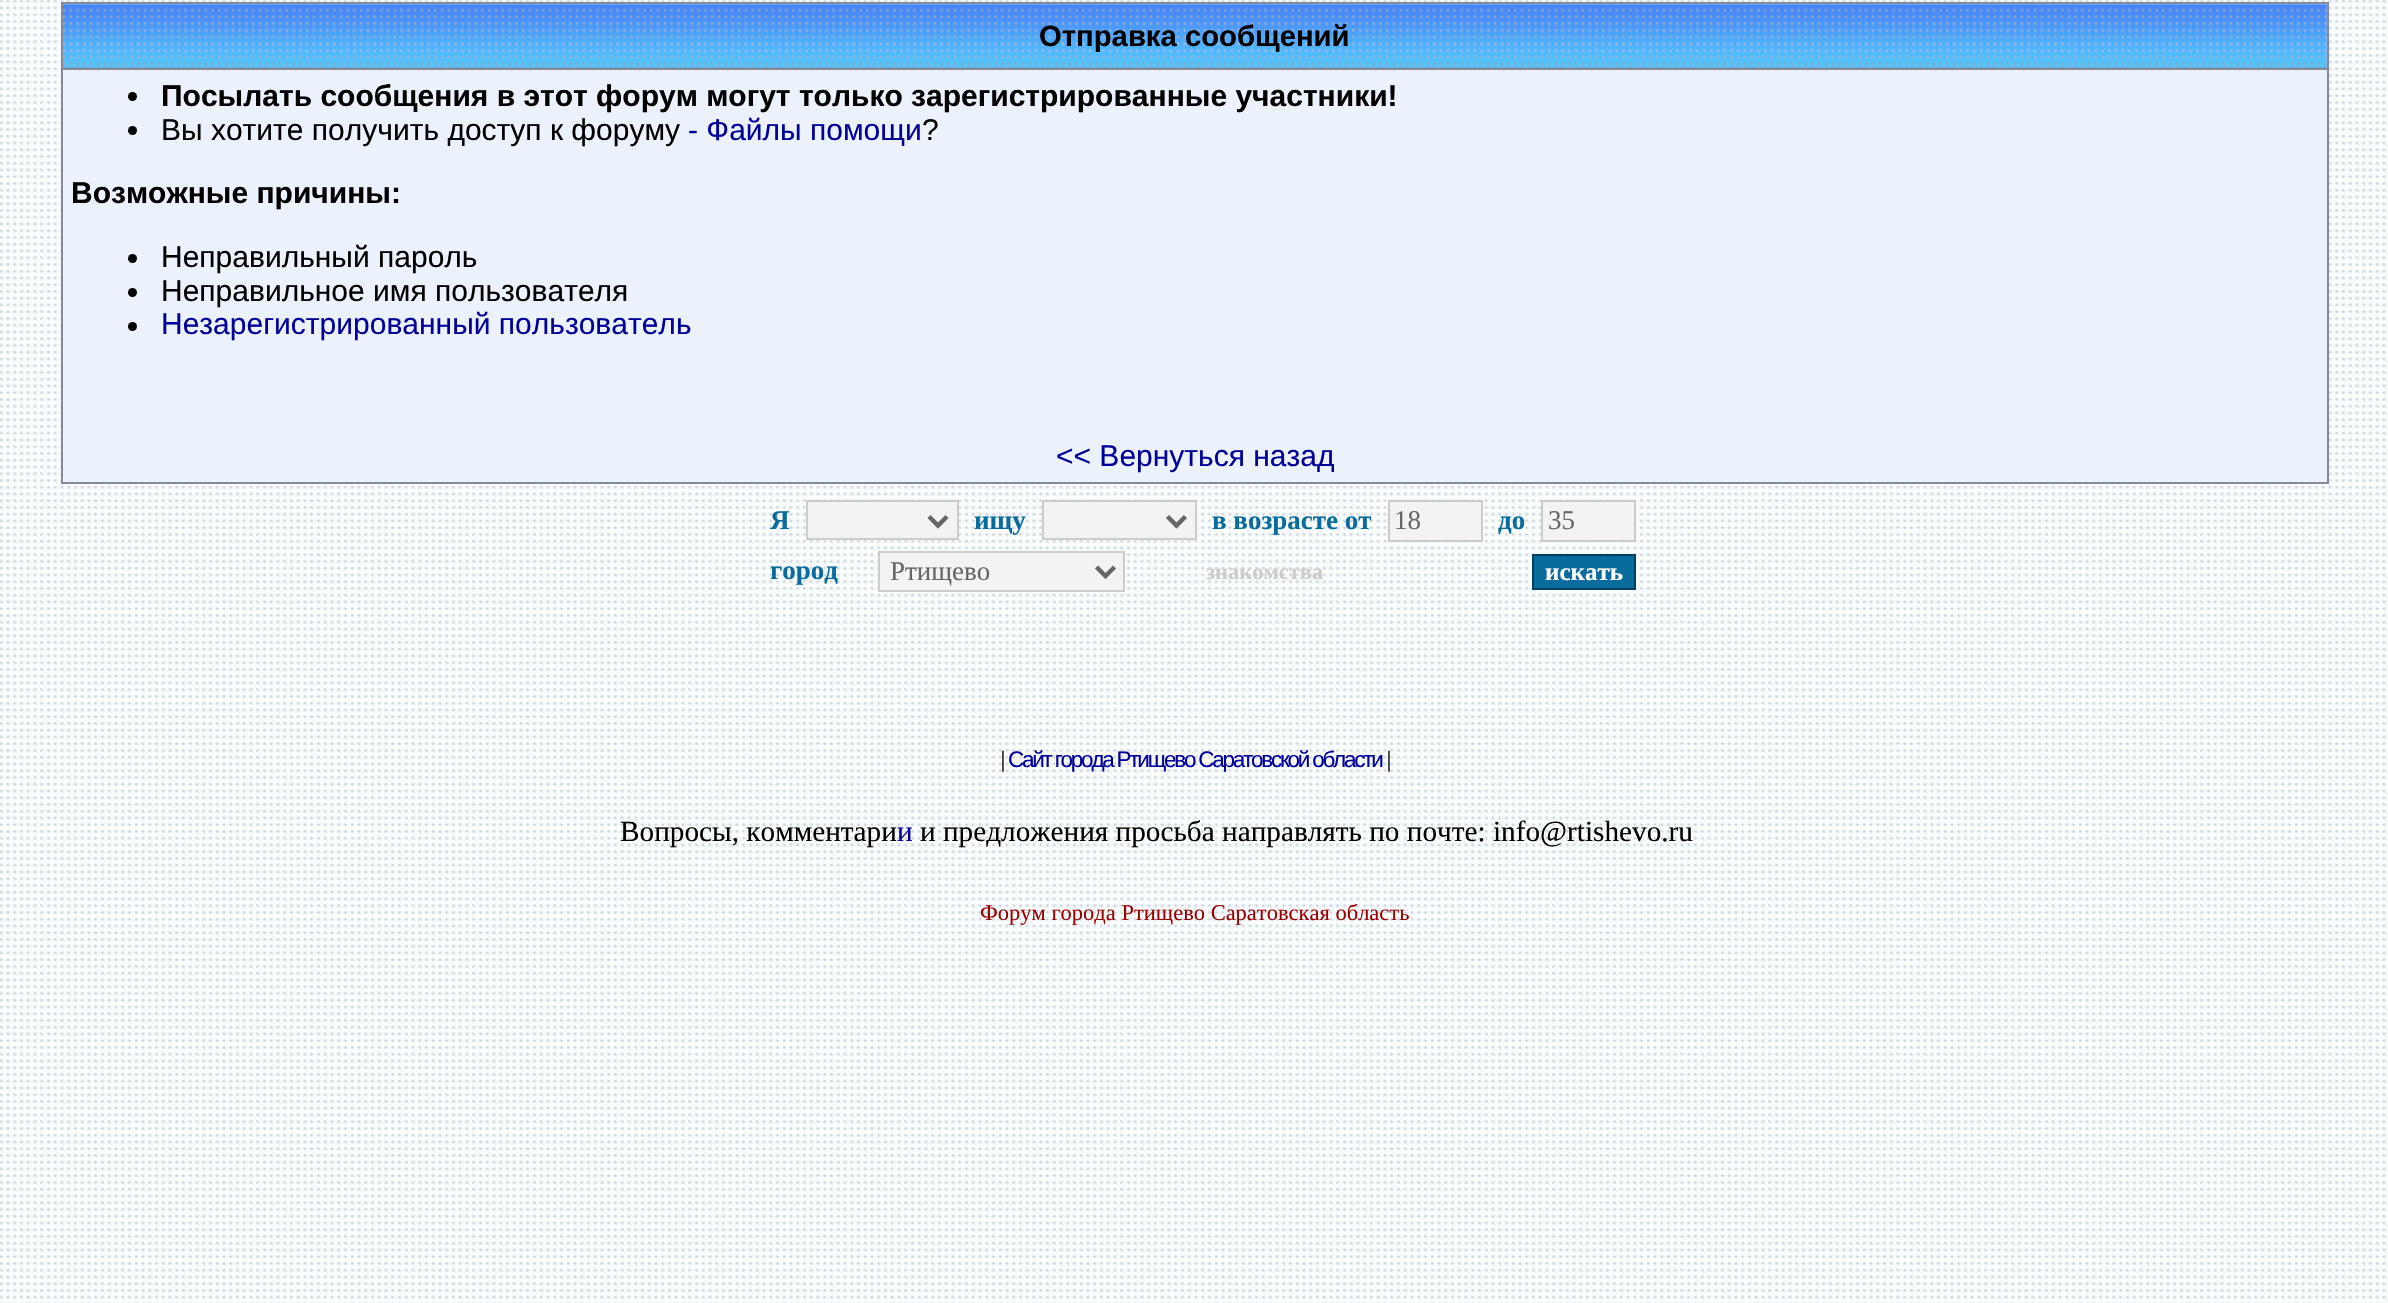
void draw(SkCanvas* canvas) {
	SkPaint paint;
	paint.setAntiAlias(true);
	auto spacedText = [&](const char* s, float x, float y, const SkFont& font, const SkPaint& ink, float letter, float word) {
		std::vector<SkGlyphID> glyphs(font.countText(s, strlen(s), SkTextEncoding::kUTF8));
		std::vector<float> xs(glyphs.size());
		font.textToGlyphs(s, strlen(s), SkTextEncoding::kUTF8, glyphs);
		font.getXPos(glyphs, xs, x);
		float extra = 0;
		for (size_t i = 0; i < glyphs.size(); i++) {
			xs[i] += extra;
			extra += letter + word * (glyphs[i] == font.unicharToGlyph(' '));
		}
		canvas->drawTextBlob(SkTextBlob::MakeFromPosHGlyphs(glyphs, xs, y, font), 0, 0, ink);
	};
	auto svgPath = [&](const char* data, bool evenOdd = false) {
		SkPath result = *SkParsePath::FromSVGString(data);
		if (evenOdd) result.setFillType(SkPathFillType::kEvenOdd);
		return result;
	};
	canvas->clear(0xffffffff);
	canvas->drawImageRect(SkImages::DeferredFromEncodedData(SkData::MakeFromFileName("img1.png")), SkRect::MakeXYWH(0, 0, 2388, 1303), SkSamplingOptions());
	paint.setColor(0xffecf2fc);
	canvas->drawRect(SkRect::MakeXYWH(62, 3, 2266, 480), paint);
	paint.setStroke(true);
	paint.setStrokeWidth(2);
	paint.setColor(0xff848a9c);
	canvas->drawRect(SkRect::MakeXYWH(62, 3, 2266, 480), paint);
	canvas->drawImageRect(SkImages::DeferredFromEncodedData(SkData::MakeFromFileName("img2.png")), SkRect::MakeXYWH(63, 4, 2264, 64), SkSamplingOptions());
	paint.setStroke(false);
	canvas->drawRect(SkRect::MakeXYWH(63, 68, 2264, 2), paint);
	SkFont f1(fontMgr->matchFamilyStyle("Liberation Sans", SkFontStyle::Bold()), 29.25);
	f1.setSubpixel(true);
	paint.setColor(0xff000000);
	canvas->drawString("Отправка сообщений", 1039, 46, f1, paint);
	canvas->drawCircle(132.5, 96.5, 4.5, paint);
	SkFont f2(fontMgr->matchFamilyStyle("Liberation Sans", SkFontStyle::Bold()), 30);
	f2.setSubpixel(true);
	canvas->drawString("Посылать сообщения в этот форум могут только зарегистрированные участники!", 161, 106, f2, paint);
	canvas->drawCircle(132.5, 130.5, 4.5, paint);
	SkFont f3(fontMgr->matchFamilyStyle("Liberation Sans", SkFontStyle::Normal()), 30);
	f3.setSubpixel(true);
	canvas->drawString("Вы хотите получить доступ к форуму", 161, 140, f3, paint);
	paint.setColor(0xff000099);
	canvas->drawString("- Файлы помощи", 688, 140, f3, paint);
	paint.setColor(0xff000000);
	canvas->drawString("?", 922, 140, f3, paint);
	canvas->drawString("Возможные причины:", 71, 203, f2, paint);
	canvas->drawCircle(132.5, 258.5, 4.5, paint);
	canvas->drawString("Неправильный пароль", 161, 267, f3, paint);
	canvas->drawCircle(132.5, 292.5, 4.5, paint);
	canvas->drawString("Неправильное имя пользователя", 161, 301, f3, paint);
	canvas->drawCircle(132.5, 326.5, 4.5, paint);
	paint.setColor(0xff000099);
	canvas->drawString("Незарегистрированный пользователь", 161, 334, f3, paint);
	canvas->drawString("<< Вернуться назад", 1056, 466, f3, paint);
	SkFont f4(fontMgr->matchFamilyStyle("Liberation Serif", SkFontStyle::Bold()), 27);
	f4.setSubpixel(true);
	paint.setColor(0xff0a6b9d);
	canvas->drawString("Я", 770, 529, f4, paint);
	paint.setColor(0xfff3f3f4);
	canvas->drawRect(SkRect::MakeXYWH(807, 501, 151, 38), paint);
	paint.setStroke(true);
	paint.setColor(0xffcccccc);
	canvas->drawRect(SkRect::MakeXYWH(807, 501, 151, 38), paint);
	paint.setStrokeWidth(4.5);
	paint.setColor(0xff666666);
	canvas->drawPath(svgPath("M929 516.5L938 525.5L947 516.5"), paint);
	paint.setStroke(false);
	paint.setColor(0xff0a6b9d);
	canvas->drawString("ищу", 974, 529, f4, paint);
	paint.setColor(0xfff3f3f4);
	canvas->drawRect(SkRect::MakeXYWH(1043, 501, 153, 38), paint);
	paint.setStroke(true);
	paint.setStrokeWidth(2);
	paint.setColor(0xffcccccc);
	canvas->drawRect(SkRect::MakeXYWH(1043, 501, 153, 38), paint);
	paint.setStrokeWidth(4.5);
	paint.setColor(0xff666666);
	canvas->drawPath(svgPath("M1167.5 516.5L1176.5 525.5L1185.5 516.5"), paint);
	paint.setStroke(false);
	paint.setColor(0xff0a6b9d);
	canvas->drawString("в возрасте от", 1212, 529, f4, paint);
	paint.setColor(0xfff3f3f4);
	canvas->drawRect(SkRect::MakeXYWH(1389, 501, 93, 40), paint);
	paint.setStroke(true);
	paint.setStrokeWidth(2);
	paint.setColor(0xffcccccc);
	canvas->drawRect(SkRect::MakeXYWH(1389, 501, 93, 40), paint);
	SkFont f5(fontMgr->matchFamilyStyle("Liberation Serif", SkFontStyle::Normal()), 27);
	f5.setSubpixel(true);
	paint.setStroke(false);
	paint.setColor(0xff666666);
	canvas->drawString("18", 1394, 529, f5, paint);
	paint.setColor(0xff0a6b9d);
	canvas->drawString("до", 1498, 529, f4, paint);
	paint.setColor(0xfff3f3f4);
	canvas->drawRect(SkRect::MakeXYWH(1542, 501, 93, 40), paint);
	paint.setStroke(true);
	paint.setColor(0xffcccccc);
	canvas->drawRect(SkRect::MakeXYWH(1542, 501, 93, 40), paint);
	paint.setStroke(false);
	paint.setColor(0xff666666);
	canvas->drawString("35", 1548, 529, f5, paint);
	paint.setColor(0xff0a6b9d);
	canvas->drawString("город", 770, 579, f4, paint);
	paint.setColor(0xfff3f3f4);
	canvas->drawRect(SkRect::MakeXYWH(879, 552, 245, 39), paint);
	paint.setStroke(true);
	paint.setColor(0xffcccccc);
	canvas->drawRect(SkRect::MakeXYWH(879, 552, 245, 39), paint);
	paint.setStrokeWidth(4.5);
	paint.setColor(0xff666666);
	canvas->drawPath(svgPath("M1096.5 567L1105.5 576L1114.5 567"), paint);
	paint.setStroke(false);
	canvas->drawString("Ртищево", 890, 580, f5, paint);
	SkFont f6(fontMgr->matchFamilyStyle("Liberation Serif", SkFontStyle::Bold()), 22.5);
	f6.setSubpixel(true);
	paint.setColor(0xffcccccc);
	canvas->drawString("знакомства", 1206, 579, f6, paint);
	paint.setColor(0xff0a6b9d);
	canvas->drawRect(SkRect::MakeXYWH(1533, 555, 102, 34), paint);
	paint.setStroke(true);
	paint.setStrokeWidth(2);
	paint.setColor(0xff063f5e);
	canvas->drawRect(SkRect::MakeXYWH(1533, 555, 102, 34), paint);
	SkFont f7(fontMgr->matchFamilyStyle("Liberation Serif", SkFontStyle::Bold()), 25);
	f7.setSubpixel(true);
	paint.setStroke(false);
	paint.setColor(0xffffffff);
	canvas->drawString("искать", 1545, 580, f7, paint);
	SkFont f8(fontMgr->matchFamilyStyle("Liberation Sans", SkFontStyle::Normal()), 22.5);
	f8.setSubpixel(true);
	paint.setColor(0xff444444);
	spacedText("|", 1000, 767, f8, paint, -2.25, 0);
	paint.setColor(0xff000099);
	spacedText("Сайт города Ртищево Саратовской области", 1008, 767, f8, paint, -2.25, 0);
	paint.setColor(0xff444444);
	spacedText("|", 1386, 767, f8, paint, -2.25, 0);
	SkFont f9(fontMgr->matchFamilyStyle("Liberation Serif", SkFontStyle::Normal()), 29.25);
	f9.setSubpixel(true);
	paint.setColor(0xff000000);
	canvas->drawString("Вопросы, комментари", 620, 841, f9, paint);
	paint.setColor(0xff000099);
	canvas->drawString("и", 897, 841, f9, paint);
	paint.setColor(0xff000000);
	canvas->drawString("и предложения просьба направлять по почте: info@rtishevo.ru", 920, 841, f9, paint);
	SkFont f10(fontMgr->matchFamilyStyle("Liberation Serif", SkFontStyle::Normal()), 22.5);
	f10.setSubpixel(true);
	paint.setColor(0xff990000);
	canvas->drawString("Форум города Ртищево Саратовская область", 980, 920, f10, paint);
}
